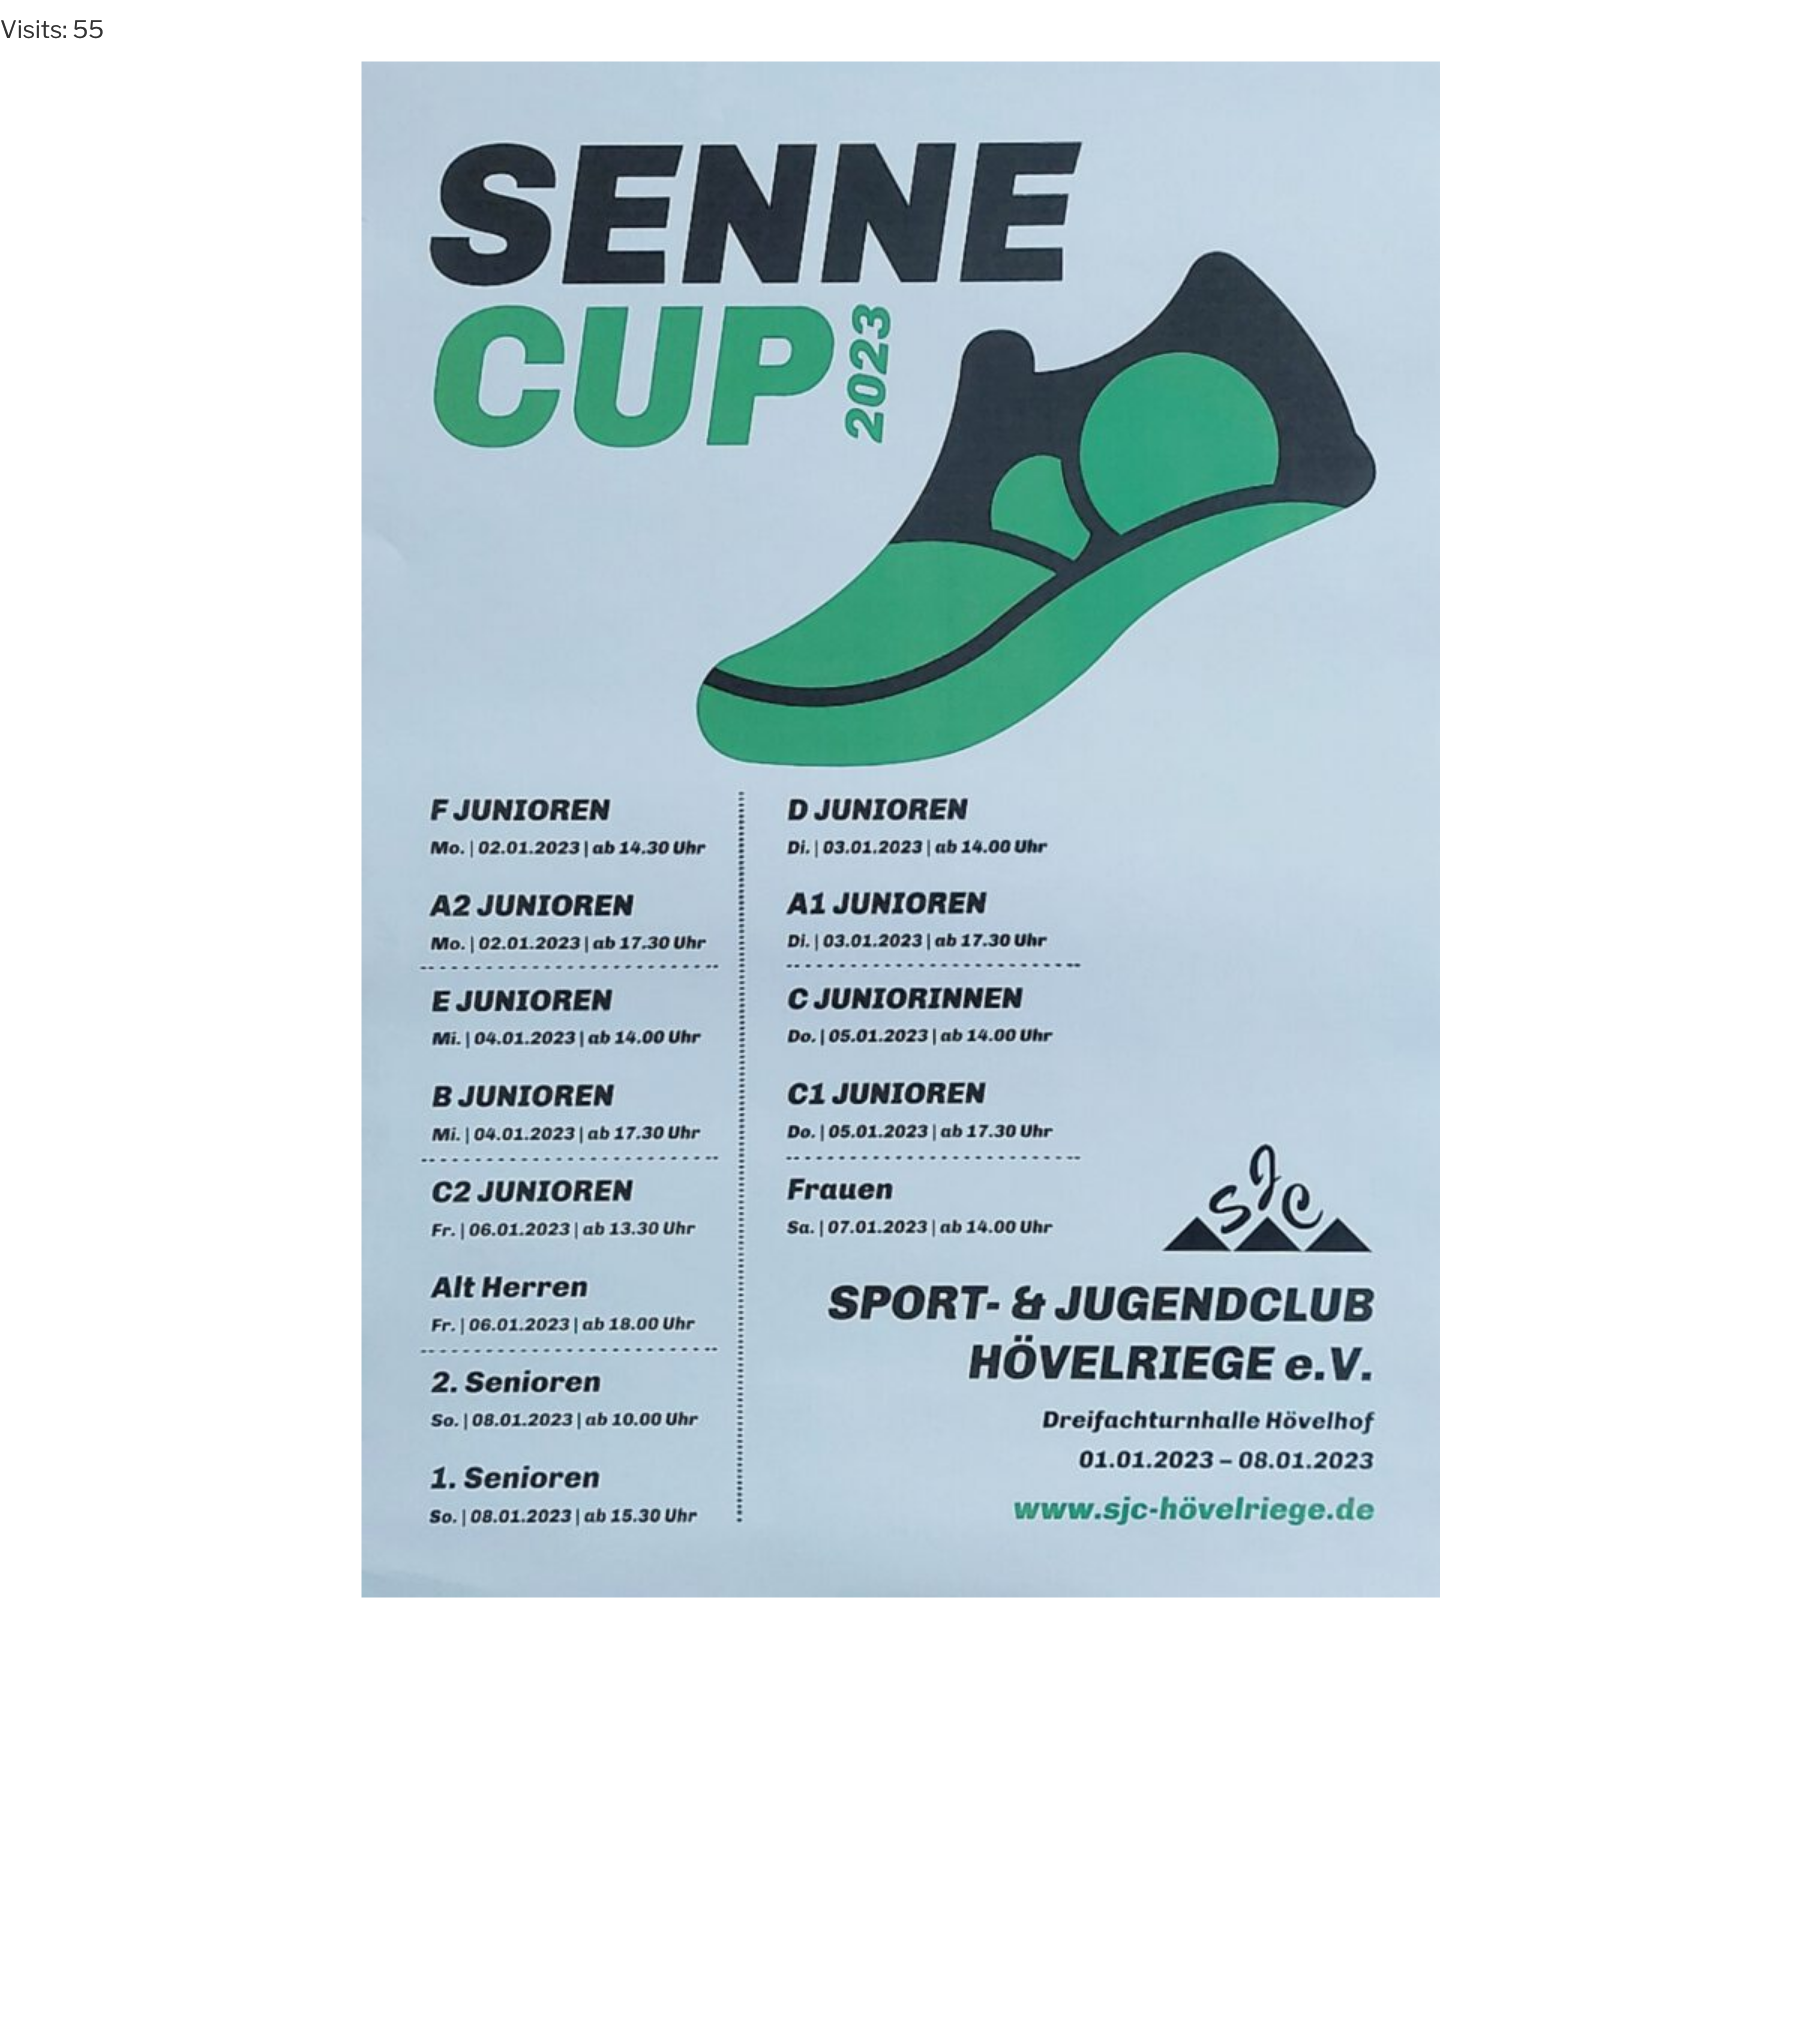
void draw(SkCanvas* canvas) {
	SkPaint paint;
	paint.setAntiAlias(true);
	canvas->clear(0xffffffff);
	SkFont f1(fontMgr->matchFamilyStyle("Libre Franklin", SkFontStyle::Normal()), 24);
	f1.setSubpixel(true);
	paint.setColor(0xff333333);
	canvas->drawString("Visits: 55", 0, 38, f1, paint);
	canvas->drawImageRect(SkImages::DeferredFromEncodedData(SkData::MakeFromFileName("img1.png")), SkRect::MakeXYWH(361, 61, 1079, 1537), SkSamplingOptions());
}
